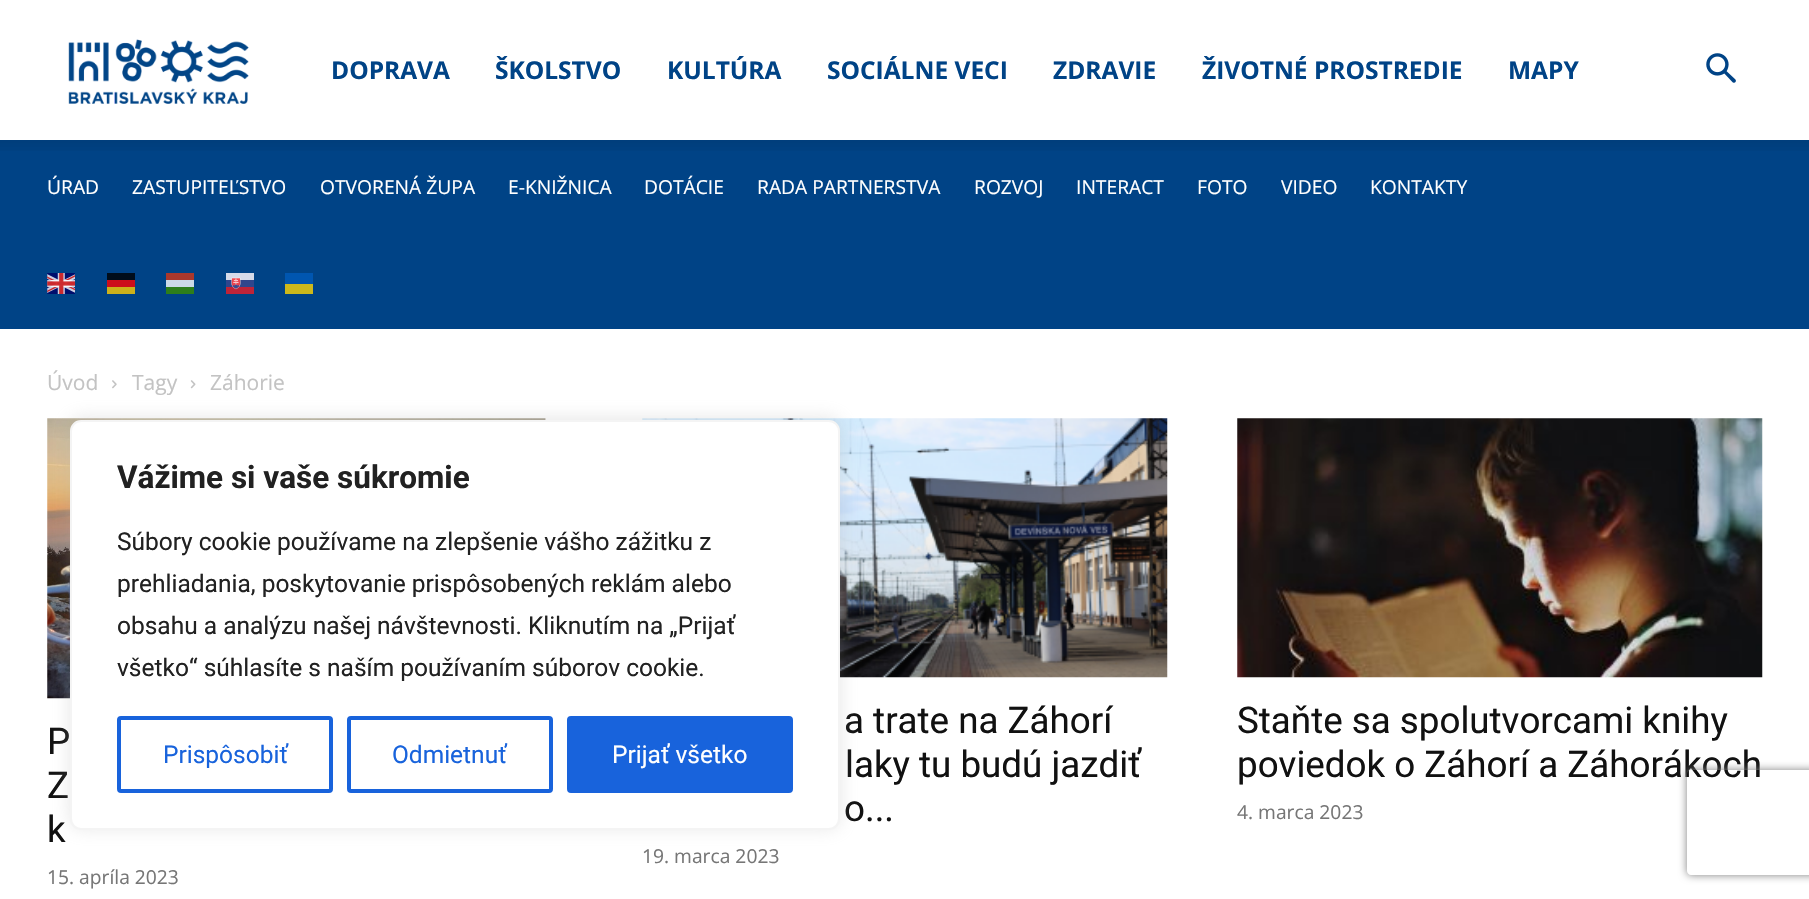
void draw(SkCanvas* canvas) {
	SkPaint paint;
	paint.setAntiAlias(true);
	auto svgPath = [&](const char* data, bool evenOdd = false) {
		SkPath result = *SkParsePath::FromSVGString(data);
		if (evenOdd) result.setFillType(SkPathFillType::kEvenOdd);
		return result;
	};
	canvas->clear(0xffffffff);
	canvas->drawImageRect(SkImages::DeferredFromEncodedData(SkData::MakeFromFileName("img1.png")), SkRect::MakeXYWH(68, 39, 181, 65), SkSamplingOptions());
	SkFont f1(fontMgr->matchFamilyStyle("Open Sans", SkFontStyle::Bold()), 24.5);
	f1.setSubpixel(true);
	paint.setColor(0xff004386);
	canvas->drawString("DOPRAVA", 331, 79, f1, paint);
	canvas->drawString("ŠKOLSTVO", 495, 79, f1, paint);
	canvas->drawString("KULTÚRA", 667, 79, f1, paint);
	canvas->drawString("SOCIÁLNE VECI", 827, 79, f1, paint);
	canvas->drawString("ZDRAVIE", 1053, 79, f1, paint);
	canvas->drawString("ŽIVOTNÉ PROSTREDIE", 1202, 79, f1, paint);
	canvas->drawString("MAPY", 1508, 79, f1, paint);
	canvas->drawImageRect(SkImages::DeferredFromEncodedData(SkData::MakeFromFileName("img2.png")), SkRect::MakeXYWH(1706, 53, 30, 30), SkSamplingOptions());
	canvas->drawRect(SkRect::MakeXYWH(0, 140, 1809, 189), paint);
	canvas->drawImageRect(SkImages::DeferredFromEncodedData(SkData::MakeFromFileName("img3.png")), SkRect::MakeXYWH(0, 140, 1809, 11), SkSamplingOptions());
	SkFont f2(fontMgr->matchFamilyStyle("Open Sans", SkFontStyle::Normal()), 19.25);
	f2.setSubpixel(true);
	paint.setColor(0xffffffff);
	canvas->drawString("ÚRAD", 47, 194, f2, paint);
	canvas->drawString("ZASTUPITEĽSTVO", 132, 194, f2, paint);
	canvas->drawString("OTVORENÁ ŽUPA", 320, 194, f2, paint);
	canvas->drawString("E-KNIŽNICA", 508, 194, f2, paint);
	canvas->drawString("DOTÁCIE", 644, 194, f2, paint);
	canvas->drawString("RADA PARTNERSTVA", 757, 194, f2, paint);
	canvas->drawString("ROZVOJ", 974, 194, f2, paint);
	canvas->drawString("INTERACT", 1076, 194, f2, paint);
	canvas->drawString("FOTO", 1197, 194, f2, paint);
	canvas->drawString("VIDEO", 1281, 194, f2, paint);
	canvas->drawString("KONTAKTY", 1370, 194, f2, paint);
	canvas->drawImageRect(SkImages::DeferredFromEncodedData(SkData::MakeFromFileName("img4.png")), SkRect::MakeXYWH(47, 273, 28, 21), SkSamplingOptions());
	paint.setColor(0xff000d1b);
	canvas->drawRect(SkRect::MakeXYWH(107, 273, 28, 7), paint);
	paint.setColor(0xffaa382c);
	canvas->drawRect(SkRect::MakeXYWH(166, 273, 28, 7), paint);
	canvas->drawImageRect(SkImages::DeferredFromEncodedData(SkData::MakeFromFileName("img5.png")), SkRect::MakeXYWH(226, 273, 28, 21), SkSamplingOptions());
	paint.setColor(0xff0056b0);
	canvas->drawRect(SkRect::MakeXYWH(285, 273, 28, 11), paint);
	paint.setColor(0xffcc0d1b);
	canvas->drawRect(SkRect::MakeXYWH(107, 280, 28, 7), paint);
	paint.setColor(0xffccd9e7);
	canvas->drawRect(SkRect::MakeXYWH(166, 280, 28, 7), paint);
	paint.setColor(0xffccb81b);
	canvas->drawRect(SkRect::MakeXYWH(285, 284, 28, 10), paint);
	paint.setColor(0xffccb11b);
	canvas->drawRect(SkRect::MakeXYWH(107, 287, 28, 7), paint);
	paint.setColor(0xff2d7e1b);
	canvas->drawRect(SkRect::MakeXYWH(166, 287, 28, 7), paint);
	SkFont f3(fontMgr->matchFamilyStyle("Open Sans", SkFontStyle::Normal()), 21);
	f3.setSubpixel(true);
	paint.setColor(0xffc3c3c3);
	canvas->drawString("Úvod", 47, 390, f3, paint);
	canvas->drawImageRect(SkImages::DeferredFromEncodedData(SkData::MakeFromFileName("img6.png")), SkRect::MakeXYWH(112, 380, 5, 9), SkSamplingOptions());
	canvas->drawString("Tagy", 132, 390, f3, paint);
	canvas->drawImageRect(SkImages::DeferredFromEncodedData(SkData::MakeFromFileName("img7.png")), SkRect::MakeXYWH(190, 380, 6, 9), SkSamplingOptions());
	canvas->drawString("Záhorie", 210, 390, f3, paint);
	canvas->drawImageRect(SkImages::DeferredFromEncodedData(SkData::MakeFromFileName("img8.png")), SkRect::MakeXYWH(47, 418, 499, 281), SkSamplingOptions());
	SkFont f4(fontMgr->matchFamilyStyle("Roboto", SkFontStyle::Normal()), 36.75);
	f4.setSubpixel(true);
	paint.setColor(0xff111111);
	canvas->drawString("P", 47, 754, f4, paint);
	canvas->drawString("Z", 47, 798, f4, paint);
	canvas->drawString("k", 47, 842, f4, paint);
	paint.setColor(0xff767676);
	canvas->drawString("15. apríla 2023", 47, 884, f2, paint);
	canvas->drawImageRect(SkImages::DeferredFromEncodedData(SkData::MakeFromFileName("img9.png")), SkRect::MakeXYWH(642, 418, 526, 260), SkSamplingOptions());
	paint.setColor(0xff111111);
	canvas->drawString("a trate na Záhorí", 844, 733, f4, paint);
	canvas->drawString("laky tu budú jazdiť", 845, 777, f4, paint);
	canvas->drawString("o...", 844, 821, f4, paint);
	paint.setColor(0xff767676);
	canvas->drawString("19. marca 2023", 642, 863, f2, paint);
	canvas->drawImageRect(SkImages::DeferredFromEncodedData(SkData::MakeFromFileName("img10.png")), SkRect::MakeXYWH(1237, 418, 526, 260), SkSamplingOptions());
	paint.setColor(0xff111111);
	canvas->drawString("Staňte sa spolutvorcami knihy", 1237, 733, f4, paint);
	canvas->drawString("poviedok o Záhorí a Záhorákoch", 1237, 777, f4, paint);
	paint.setColor(0xff767676);
	canvas->drawString("4. marca 2023", 1237, 819, f2, paint);
	paint.setColor(0x4dacabab);
	paint.setMaskFilter(SkMaskFilter::MakeBlur(kNormal_SkBlurStyle, 9));
	canvas->drawRoundRect(SkRect::MakeXYWH(70, 418, 770, 410), 11, 11, paint);
	paint.setMaskFilter(nullptr);
	paint.setColor(0xffffffff);
	canvas->drawRoundRect(SkRect::MakeXYWH(71, 421, 768, 408), 10, 10, paint);
	paint.setStroke(true);
	paint.setStrokeWidth(2);
	paint.setColor(0xfff4f4f4);
	canvas->drawRoundRect(SkRect::MakeXYWH(71, 421, 768, 408), 10, 10, paint);
	SkFont f5(fontMgr->matchFamilyStyle("Roboto", SkFontStyle::Bold()), 31.5);
	f5.setSubpixel(true);
	paint.setStroke(false);
	paint.setColor(0xff212121);
	canvas->drawString("Vážime si vaše súkromie", 117, 488, f5, paint);
	SkFont f6(fontMgr->matchFamilyStyle("Roboto", SkFontStyle::Normal()), 24.5);
	f6.setSubpixel(true);
	canvas->drawString("Súbory cookie používame na zlepšenie vášho zážitku z", 117, 550, f6, paint);
	canvas->drawString("prehliadania, poskytovanie prispôsobených reklám alebo", 117, 592, f6, paint);
	canvas->drawString("obsahu a analýzu našej návštevnosti. Kliknutím na „Prijať", 117, 634, f6, paint);
	canvas->drawString("všetko“ súhlasíte s naším používaním súborov cookie.", 117, 676, f6, paint);
	paint.setStroke(true);
	paint.setStrokeWidth(4);
	paint.setColor(0xff1863dc);
	canvas->drawRoundRect(SkRect::MakeXYWH(119, 718, 212, 73), 2, 2, paint);
	paint.setStroke(false);
	canvas->drawString("Prispôsobiť", 163, 763, f6, paint);
	paint.setStroke(true);
	canvas->drawRoundRect(SkRect::MakeXYWH(349, 718, 202, 73), 2, 2, paint);
	paint.setStroke(false);
	canvas->drawString("Odmietnuť", 392, 763, f6, paint);
	canvas->drawRoundRect(SkRect::MakeXYWH(569, 718, 222, 73), 2, 2, paint);
	paint.setStroke(true);
	canvas->drawRoundRect(SkRect::MakeXYWH(569, 718, 222, 73), 2, 2, paint);
	paint.setStroke(false);
	paint.setColor(0xffffffff);
	canvas->drawString("Prijať všetko", 612, 763, f6, paint);
	canvas->save();
	canvas->clipPath(svgPath("M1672 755H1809V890H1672ZM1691 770H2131C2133 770 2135 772 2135 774V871C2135 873 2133 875 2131 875H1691C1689 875 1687 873 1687 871V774C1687 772 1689 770 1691 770Z", true), true);
	paint.setColor(0xff808080);
	paint.setMaskFilter(SkMaskFilter::MakeBlur(kNormal_SkBlurStyle, 4.5));
	canvas->drawRoundRect(SkRect::MakeXYWH(1687, 770, 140, 105), 4, 4, paint);
	paint.setMaskFilter(nullptr);
	canvas->restore();
}
